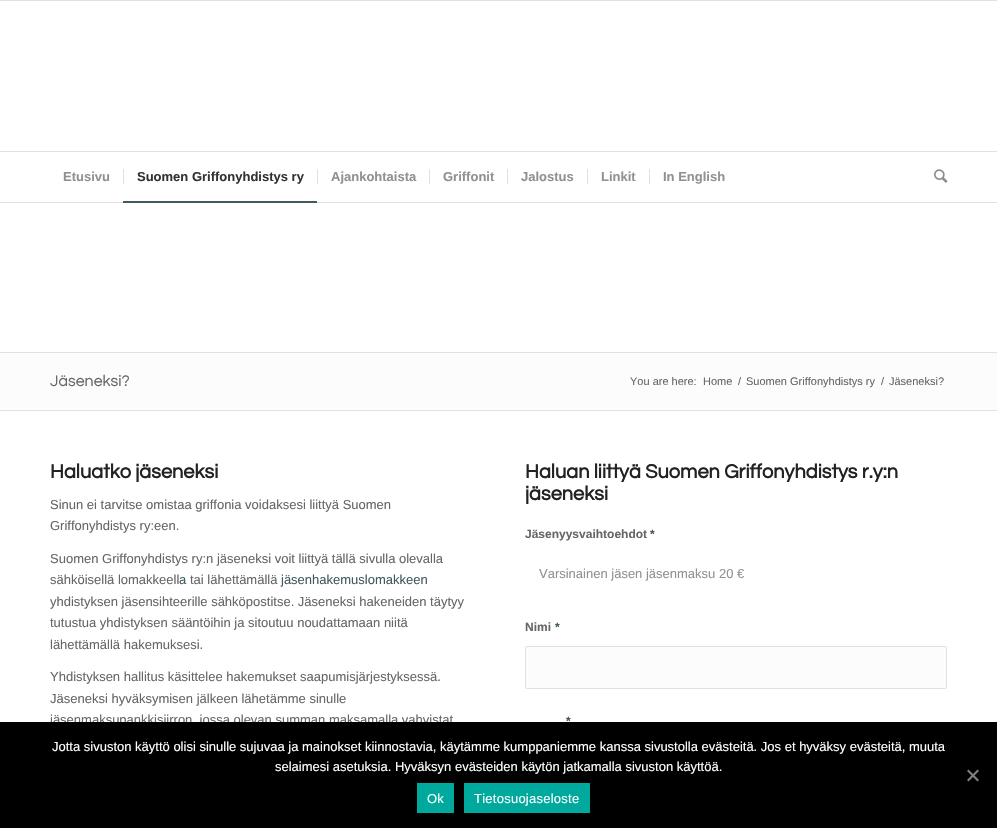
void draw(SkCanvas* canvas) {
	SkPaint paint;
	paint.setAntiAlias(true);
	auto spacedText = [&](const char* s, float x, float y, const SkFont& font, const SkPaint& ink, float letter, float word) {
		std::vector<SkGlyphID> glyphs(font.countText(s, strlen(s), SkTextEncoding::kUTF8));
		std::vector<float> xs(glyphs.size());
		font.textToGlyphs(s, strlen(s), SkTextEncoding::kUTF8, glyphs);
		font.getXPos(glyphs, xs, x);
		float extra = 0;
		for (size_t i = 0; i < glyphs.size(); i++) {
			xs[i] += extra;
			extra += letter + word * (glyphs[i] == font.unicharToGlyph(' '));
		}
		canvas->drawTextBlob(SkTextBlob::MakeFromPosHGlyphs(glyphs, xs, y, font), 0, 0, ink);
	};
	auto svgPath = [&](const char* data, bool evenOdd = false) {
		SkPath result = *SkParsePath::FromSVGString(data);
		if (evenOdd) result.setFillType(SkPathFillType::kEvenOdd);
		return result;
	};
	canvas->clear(0xffffffff);
	paint.setColor(0xffe1e1e1);
	canvas->drawRect(SkRect::MakeXYWH(0, 0, 997, 1), paint);
	canvas->drawRect(SkRect::MakeXYWH(0, 202, 997, 1), paint);
	canvas->drawRect(SkRect::MakeXYWH(0, 151, 997, 1), paint);
	SkFont f1(fontMgr->matchFamilyStyle("Liberation Sans", SkFontStyle::Bold()), 13);
	f1.setSubpixel(true);
	paint.setColor(0xff919191);
	canvas->drawString("Etusivu", 63, 181, f1, paint);
	paint.setColor(0xff333333);
	canvas->drawString("Suomen Griffonyhdistys ry", 137, 181, f1, paint);
	paint.setColor(0xffe1e1e1);
	canvas->drawRect(SkRect::MakeXYWH(123, 169, 1, 15), paint);
	paint.setColor(0xff435960);
	canvas->drawRect(SkRect::MakeXYWH(123, 201, 194, 2), paint);
	paint.setColor(0xff919191);
	canvas->drawString("Ajankohtaista", 331, 181, f1, paint);
	paint.setColor(0xffe1e1e1);
	canvas->drawRect(SkRect::MakeXYWH(317, 169, 1, 15), paint);
	paint.setColor(0xff919191);
	canvas->drawString("Griffonit", 443, 181, f1, paint);
	paint.setColor(0xffe1e1e1);
	canvas->drawRect(SkRect::MakeXYWH(429, 169, 1, 15), paint);
	paint.setColor(0xff919191);
	canvas->drawString("Jalostus", 521, 181, f1, paint);
	paint.setColor(0xffe1e1e1);
	canvas->drawRect(SkRect::MakeXYWH(507, 169, 1, 15), paint);
	paint.setColor(0xff919191);
	canvas->drawString("Linkit", 601, 181, f1, paint);
	paint.setColor(0xffe1e1e1);
	canvas->drawRect(SkRect::MakeXYWH(587, 169, 1, 15), paint);
	paint.setColor(0xff919191);
	canvas->drawString("In English", 663, 181, f1, paint);
	paint.setColor(0xffe1e1e1);
	canvas->drawRect(SkRect::MakeXYWH(649, 169, 1, 15), paint);
	canvas->drawImageRect(SkImages::DeferredFromEncodedData(SkData::MakeFromFileName("img1.png")), SkRect::MakeXYWH(934, 169, 14, 14), SkSamplingOptions());
	paint.setColor(0xfffcfcfc);
	canvas->drawRect(SkRect::MakeXYWH(0, 353, 997, 57), paint);
	paint.setColor(0xffe1e1e1);
	canvas->drawRect(SkRect::MakeXYWH(0, 352, 997, 1), paint);
	SkFont f2(fontMgr->matchFamilyStyle("Questrial", SkFontStyle::Normal()), 16);
	f2.setSubpixel(true);
	paint.setColor(0xff666666);
	canvas->drawString("Jäseneksi?", 50, 386, f2, paint);
	SkFont f3(fontMgr->matchFamilyStyle("Liberation Sans", SkFontStyle::Normal()), 11);
	f3.setSubpixel(true);
	canvas->drawString("You are here:", 630, 385, f3, paint);
	canvas->drawString("Home", 703, 385, f3, paint);
	canvas->drawString("/", 738, 385, f3, paint);
	canvas->drawString("Suomen Griffonyhdistys ry", 746, 385, f3, paint);
	canvas->drawString("/", 881, 385, f3, paint);
	canvas->drawString("Jäseneksi?", 889, 385, f3, paint);
	paint.setColor(0xffe1e1e1);
	canvas->drawRect(SkRect::MakeXYWH(0, 410, 997, 1), paint);
	SkFont f4(fontMgr->matchFamilyStyle("Questrial", SkFontStyle::Bold()), 20);
	f4.setSubpixel(true);
	paint.setColor(0xff222222);
	canvas->drawString("Haluatko jäseneksi", 50, 478, f4, paint);
	SkFont f5(fontMgr->matchFamilyStyle("Liberation Sans", SkFontStyle::Normal()), 13);
	f5.setSubpixel(true);
	paint.setColor(0xff666666);
	canvas->drawString("Sinun ei tarvitse omistaa griffonia voidaksesi liittyä Suomen", 50, 509, f5, paint);
	canvas->drawString("Griffonyhdistys ry:een.", 50, 530, f5, paint);
	canvas->drawString("Suomen Griffonyhdistys ry:n jäseneksi voit liittyä tällä sivulla olevalla", 50, 563, f5, paint);
	canvas->drawString("sähköisellä lomakkeell", 50, 584, f5, paint);
	paint.setColor(0xff435960);
	canvas->drawString("a", 179, 584, f5, paint);
	paint.setColor(0xff666666);
	canvas->drawString("tai lähettämällä", 190, 584, f5, paint);
	paint.setColor(0xff435960);
	canvas->drawString("jäsenhakemuslomakkeen", 281, 584, f5, paint);
	paint.setColor(0xff666666);
	canvas->drawString("yhdistyksen jäsensihteerille sähköpostitse. Jäseneksi hakeneiden täytyy", 50, 606, f5, paint);
	canvas->drawString("tutustua yhdistyksen sääntöihin ja sitoutuu noudattamaan niitä", 50, 627, f5, paint);
	canvas->drawString("lähettämällä hakemuksesi.", 50, 649, f5, paint);
	canvas->drawString("Yhdistyksen hallitus käsittelee hakemukset saapumisjärjestyksessä.", 50, 681, f5, paint);
	canvas->drawString("Jäseneksi hyväksymisen jälkeen lähetämme sinulle", 50, 703, f5, paint);
	canvas->drawString("jäsenmaksupankkisiirron, jossa olevan summan maksamalla vahvistat", 50, 724, f5, paint);
	paint.setColor(0xff222222);
	canvas->drawString("Haluan liittyä Suomen Griffonyhdistys r.y:n", 525, 478, f4, paint);
	canvas->drawString("jäseneksi", 525, 500, f4, paint);
	SkFont f6(fontMgr->matchFamilyStyle("Liberation Sans", SkFontStyle::Bold()), 12);
	f6.setSubpixel(true);
	paint.setColor(0xff666666);
	canvas->drawString("Jäsenyysvaihtoehdot", 525, 538, f6, paint);
	paint.setColor(0xff435960);
	canvas->drawString("*", 650, 538, f6, paint);
	paint.setColor(0xff919191);
	canvas->drawString("Varsinainen jäsen jäsenmaksu 20 €", 539, 578, f5, paint);
	paint.setColor(0xff666666);
	canvas->drawString("Nimi", 525, 631, f6, paint);
	paint.setColor(0xff435960);
	canvas->drawString("*", 555, 631, f6, paint);
	paint.setColor(0xfffcfcfc);
	canvas->drawRoundRect(SkRect::MakeXYWH(525.5, 646.5, 421, 42), 1.5, 1.5, paint);
	paint.setStroke(true);
	paint.setStrokeWidth(1);
	paint.setColor(0xffe1e1e1);
	canvas->drawRoundRect(SkRect::MakeXYWH(525.5, 646.5, 421, 42), 1.5, 1.5, paint);
	paint.setStroke(false);
	paint.setColor(0xff435960);
	canvas->drawString("*", 566, 725, f6, paint);
	paint.setColor(0xff000000);
	canvas->drawRect(SkRect::MakeXYWH(0, 722, 997, 106), paint);
	paint.setColor(0xffffffff);
	canvas->drawString("Jotta sivuston käyttö olisi sinulle sujuvaa ja mainokset kiinnostavia, käytämme kumppaniemme kanssa sivustolla evästeitä. Jos et hyväksy evästeitä, muuta", 52, 751, f5, paint);
	canvas->drawString("selaimesi asetuksia. Hyväksyn evästeiden käytön jatkamalla sivuston käyttöä.", 275, 771, f5, paint);
	paint.setColor(0xff808080);
	canvas->drawPath(svgPath("M977.5 769.5L979 771L968.5 781.5L967 780Z"), paint);
	canvas->drawPath(svgPath("M967 771L968.5 769.5L979 780L977.5 781.5Z"), paint);
	paint.setColor(0xff00a99d);
	canvas->drawRect(SkRect::MakeXYWH(417, 783, 37, 30), paint);
	paint.setColor(0xffffffff);
	spacedText("Ok", 427, 803, f5, paint, 0.25, 0);
	paint.setColor(0xff00a99d);
	canvas->drawRect(SkRect::MakeXYWH(464, 783, 126, 30), paint);
	paint.setColor(0xffffffff);
	spacedText("Tietosuojaseloste", 474, 803, f5, paint, 0.25, 0);
}
